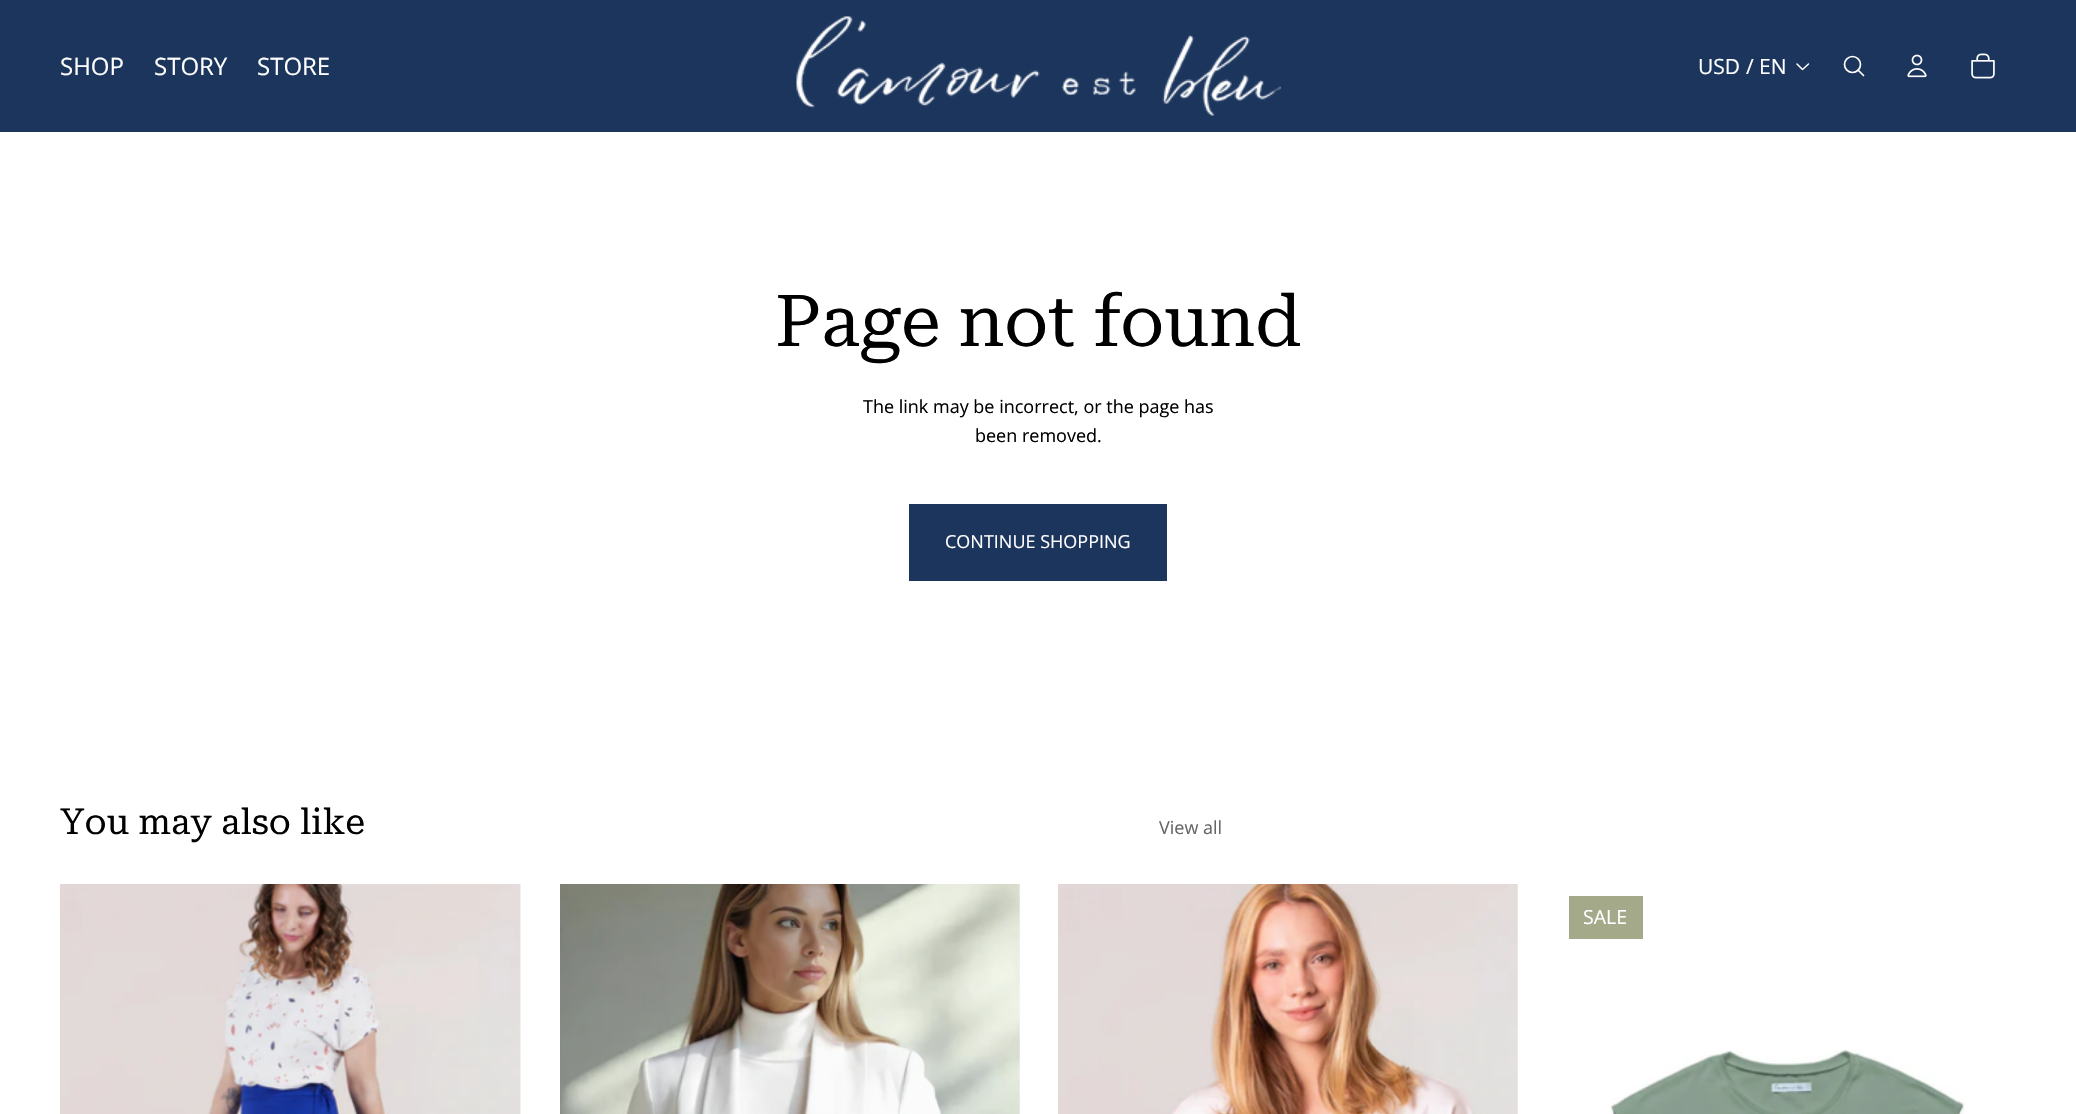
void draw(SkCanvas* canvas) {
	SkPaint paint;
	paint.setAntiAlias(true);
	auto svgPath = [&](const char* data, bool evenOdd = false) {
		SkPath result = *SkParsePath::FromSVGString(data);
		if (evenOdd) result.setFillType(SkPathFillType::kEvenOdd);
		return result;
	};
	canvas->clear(0xffffffff);
	paint.setColor(0xff1c355d);
	canvas->drawRect(SkRect::MakeXYWH(0, 0, 2076, 132), paint);
	SkFont f1(fontMgr->matchFamilyStyle("Open Sans", SkFontStyle::Normal()), 24);
	f1.setSubpixel(true);
	paint.setColor(0xffffffff);
	canvas->drawString("SHOP", 60, 75, f1, paint);
	canvas->drawString("STORY", 154, 75, f1, paint);
	canvas->drawString("STORE", 257, 75, f1, paint);
	canvas->drawImageRect(SkImages::DeferredFromEncodedData(SkData::MakeFromFileName("img1.png")), SkRect::MakeXYWH(796, 16, 485, 100), SkSamplingOptions());
	SkFont f2(fontMgr->matchFamilyStyle("Open Sans", SkFontStyle::Normal()), 21);
	f2.setSubpixel(true);
	canvas->drawString("USD", 1698, 74, f2, paint);
	canvas->drawString("/", 1746, 74, f2, paint);
	canvas->drawString("EN", 1759, 74, f2, paint);
	paint.setStroke(true);
	paint.setStrokeWidth(1.5);
	paint.setStrokeCap(SkPaint::kRound_Cap);
	paint.setStrokeJoin(SkPaint::kRound_Join);
	canvas->drawPath(svgPath("M1808.5 64L1802.5 69.5L1797 64"), paint);
	paint.setStrokeWidth(1.7);
	paint.setStrokeCap(SkPaint::kButt_Cap);
	paint.setStrokeJoin(SkPaint::kMiter_Join);
	canvas->drawCircle(1852.5, 64.5, 8, paint);
	paint.setStrokeCap(SkPaint::kRound_Cap);
	paint.setStrokeJoin(SkPaint::kRound_Join);
	canvas->drawPath(svgPath("M1858 70L1863.5 75.5"), paint);
	canvas->drawImageRect(SkImages::DeferredFromEncodedData(SkData::MakeFromFileName("img2.png")), SkRect::MakeXYWH(1907, 54, 20, 24), SkSamplingOptions());
	canvas->drawImageRect(SkImages::DeferredFromEncodedData(SkData::MakeFromFileName("img3.png")), SkRect::MakeXYWH(1971, 53, 24, 26), SkSamplingOptions());
	SkFont f3(fontMgr->matchFamilyStyle("Roboto Serif", SkFontStyle::Normal()), 72);
	f3.setSubpixel(true);
	paint.setStroke(false);
	paint.setColor(0xff000000);
	canvas->drawString("Page not found", 775, 346, f3, paint);
	SkFont f4(fontMgr->matchFamilyStyle("Open Sans", SkFontStyle::Normal()), 18);
	f4.setSubpixel(true);
	canvas->drawString("The link may be incorrect, or the page has", 863, 413, f4, paint);
	canvas->drawString("been removed.", 975, 442, f4, paint);
	paint.setColor(0xff1c355d);
	canvas->drawRect(SkRect::MakeXYWH(909, 504, 258, 77), paint);
	paint.setColor(0xffffffff);
	canvas->drawString("CONTINUE SHOPPING", 945, 548, f4, paint);
	SkFont f5(fontMgr->matchFamilyStyle("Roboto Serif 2", SkFontStyle::Normal()), 36);
	f5.setSubpixel(true);
	paint.setColor(0xff000000);
	canvas->drawString("You may also like", 60, 834, f5, paint);
	paint.setColor(0xff666666);
	canvas->drawString("View all", 1159, 834, f4, paint);
	canvas->drawImageRect(SkImages::DeferredFromEncodedData(SkData::MakeFromFileName("img4.png")), SkRect::MakeXYWH(60, 884, 461, 230), SkSamplingOptions());
	canvas->drawImageRect(SkImages::DeferredFromEncodedData(SkData::MakeFromFileName("img5.png")), SkRect::MakeXYWH(560, 884, 460, 230), SkSamplingOptions());
	canvas->drawImageRect(SkImages::DeferredFromEncodedData(SkData::MakeFromFileName("img6.png")), SkRect::MakeXYWH(1058, 884, 460, 230), SkSamplingOptions());
	paint.setColor(0xffa3a989);
	canvas->drawRect(SkRect::MakeXYWH(1569, 896, 74, 43), paint);
	SkFont f6(fontMgr->matchFamilyStyle("Open Sans", SkFontStyle::Normal()), 19.5);
	f6.setSubpixel(true);
	paint.setColor(0xffffffff);
	canvas->drawString("SALE", 1583, 924, f6, paint);
	canvas->drawImageRect(SkImages::DeferredFromEncodedData(SkData::MakeFromFileName("img7.png")), SkRect::MakeXYWH(1609, 1050, 357, 64), SkSamplingOptions());
}
